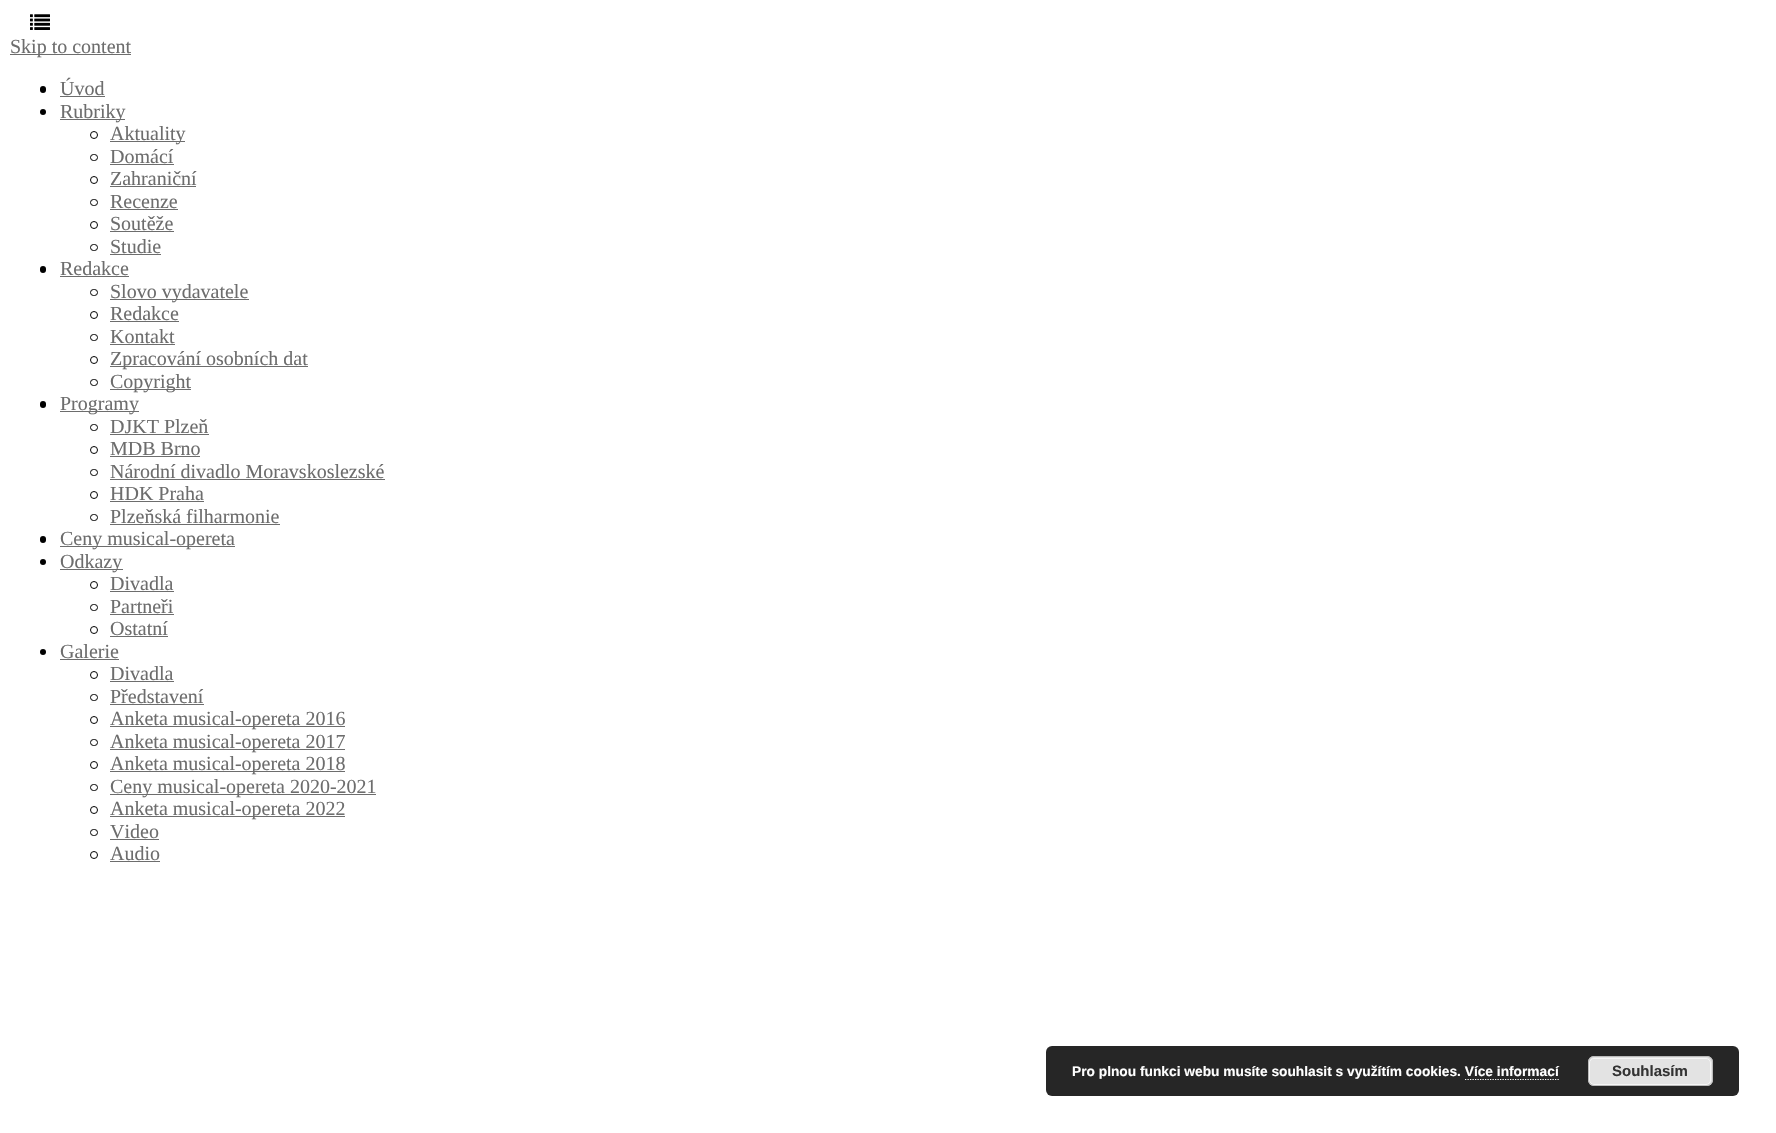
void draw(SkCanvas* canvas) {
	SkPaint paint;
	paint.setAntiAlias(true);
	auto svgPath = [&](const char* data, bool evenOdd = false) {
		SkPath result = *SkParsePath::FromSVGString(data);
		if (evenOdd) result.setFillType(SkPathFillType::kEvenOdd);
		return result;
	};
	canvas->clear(0xffffffff);
	canvas->drawImageRect(SkImages::DeferredFromEncodedData(SkData::MakeFromFileName("img1.png")), SkRect::MakeXYWH(30, 14, 20, 16), SkSamplingOptions());
	paint.setColor(0xff6d6d6d);
	canvas->drawRect(SkRect::MakeXYWH(10, 54, 121, 1), paint);
	SkFont f1(fontMgr->matchFamilyStyle("Liberation Serif", SkFontStyle::Normal()), 20);
	f1.setSubpixel(true);
	canvas->drawString("Skip to content", 10, 53, f1, paint);
	paint.setColor(0xff000000);
	canvas->drawRoundRect(SkRect::MakeXYWH(40, 86, 6, 7), 3, 3, paint);
	paint.setColor(0xff6d6d6d);
	canvas->drawString("Úvod", 60, 95, f1, paint);
	canvas->drawRect(SkRect::MakeXYWH(60, 96, 45, 1), paint);
	paint.setColor(0xff000000);
	canvas->drawCircle(43, 112, 3, paint);
	paint.setColor(0xff6d6d6d);
	canvas->drawRect(SkRect::MakeXYWH(60, 119, 65, 1), paint);
	canvas->drawString("Rubriky", 60, 118, f1, paint);
	paint.setStroke(true);
	paint.setStrokeWidth(1);
	paint.setColor(0xff000000);
	canvas->drawCircle(94, 135, 3.5, paint);
	paint.setStroke(false);
	paint.setColor(0xff6d6d6d);
	canvas->drawRect(SkRect::MakeXYWH(110, 141, 75, 1), paint);
	canvas->drawString("Aktuality", 110, 140, f1, paint);
	paint.setStroke(true);
	paint.setColor(0xff000000);
	canvas->drawRoundRect(SkRect::MakeXYWH(90.5, 154.5, 7, 6), 3, 3, paint);
	paint.setStroke(false);
	paint.setColor(0xff6d6d6d);
	canvas->drawString("Domácí", 110, 163, f1, paint);
	canvas->drawRect(SkRect::MakeXYWH(110, 164, 64, 1), paint);
	paint.setStroke(true);
	paint.setColor(0xff000000);
	canvas->drawCircle(94, 180, 3.5, paint);
	paint.setStroke(false);
	paint.setColor(0xff6d6d6d);
	canvas->drawString("Zahraniční", 110, 185, f1, paint);
	canvas->drawRect(SkRect::MakeXYWH(110, 186, 86, 1), paint);
	paint.setStroke(true);
	paint.setColor(0xff000000);
	canvas->drawRoundRect(SkRect::MakeXYWH(90.5, 199.5, 7, 6), 3, 3, paint);
	paint.setStroke(false);
	paint.setColor(0xff6d6d6d);
	canvas->drawString("Recenze", 110, 208, f1, paint);
	canvas->drawRect(SkRect::MakeXYWH(110, 209, 68, 1), paint);
	paint.setStroke(true);
	paint.setColor(0xff000000);
	canvas->drawCircle(94, 225, 3.5, paint);
	paint.setStroke(false);
	paint.setColor(0xff6d6d6d);
	canvas->drawString("Soutěže", 110, 230, f1, paint);
	canvas->drawRect(SkRect::MakeXYWH(110, 231, 64, 1), paint);
	paint.setStroke(true);
	paint.setColor(0xff000000);
	canvas->drawRoundRect(SkRect::MakeXYWH(90.5, 244.5, 7, 6), 3, 3, paint);
	paint.setStroke(false);
	paint.setColor(0xff6d6d6d);
	canvas->drawString("Studie", 110, 253, f1, paint);
	canvas->drawRect(SkRect::MakeXYWH(110, 254, 51, 1), paint);
	paint.setColor(0xff000000);
	canvas->drawRoundRect(SkRect::MakeXYWH(40, 266, 6, 7), 3, 3, paint);
	paint.setColor(0xff6d6d6d);
	canvas->drawString("Redakce", 60, 275, f1, paint);
	canvas->drawRect(SkRect::MakeXYWH(60, 276, 69, 1), paint);
	paint.setStroke(true);
	paint.setColor(0xff000000);
	canvas->drawRoundRect(SkRect::MakeXYWH(90.5, 289.5, 7, 6), 3, 3, paint);
	paint.setStroke(false);
	paint.setColor(0xff6d6d6d);
	canvas->drawRect(SkRect::MakeXYWH(110, 299, 139, 1), paint);
	canvas->drawString("Slovo vydavatele", 110, 298, f1, paint);
	paint.setStroke(true);
	paint.setColor(0xff000000);
	canvas->drawCircle(94, 315, 3.5, paint);
	paint.setStroke(false);
	paint.setColor(0xff6d6d6d);
	canvas->drawString("Redakce", 110, 320, f1, paint);
	canvas->drawRect(SkRect::MakeXYWH(110, 321, 69, 1), paint);
	paint.setStroke(true);
	paint.setColor(0xff000000);
	canvas->drawRoundRect(SkRect::MakeXYWH(90.5, 334.5, 7, 6), 3, 3, paint);
	paint.setStroke(false);
	paint.setColor(0xff6d6d6d);
	canvas->drawString("Kontakt", 110, 343, f1, paint);
	canvas->drawRect(SkRect::MakeXYWH(110, 344, 65, 1), paint);
	paint.setStroke(true);
	paint.setColor(0xff000000);
	canvas->drawCircle(94, 360, 3.5, paint);
	paint.setStroke(false);
	paint.setColor(0xff6d6d6d);
	canvas->drawRect(SkRect::MakeXYWH(110, 366, 198, 1), paint);
	canvas->drawString("Zpracování osobních dat", 110, 365, f1, paint);
	paint.setStroke(true);
	paint.setColor(0xff000000);
	canvas->drawRoundRect(SkRect::MakeXYWH(90.5, 379.5, 7, 6), 3, 3, paint);
	paint.setStroke(false);
	paint.setColor(0xff6d6d6d);
	canvas->drawRect(SkRect::MakeXYWH(110, 389, 81, 1), paint);
	canvas->drawString("Copyright", 110, 388, f1, paint);
	paint.setColor(0xff000000);
	canvas->drawRoundRect(SkRect::MakeXYWH(40, 401, 6, 7), 3, 3, paint);
	paint.setColor(0xff6d6d6d);
	canvas->drawRect(SkRect::MakeXYWH(60, 411, 79, 1), paint);
	canvas->drawString("Programy", 60, 410, f1, paint);
	paint.setStroke(true);
	paint.setColor(0xff000000);
	canvas->drawRoundRect(SkRect::MakeXYWH(90.5, 424.5, 7, 6), 3, 3, paint);
	paint.setStroke(false);
	paint.setColor(0xff6d6d6d);
	canvas->drawString("DJKT Plzeň", 110, 433, f1, paint);
	canvas->drawRect(SkRect::MakeXYWH(110, 434, 99, 1), paint);
	paint.setStroke(true);
	paint.setColor(0xff000000);
	canvas->drawCircle(94, 450, 3.5, paint);
	paint.setStroke(false);
	paint.setColor(0xff6d6d6d);
	canvas->drawString("MDB Brno", 110, 455, f1, paint);
	canvas->drawRect(SkRect::MakeXYWH(110, 456, 90, 1), paint);
	paint.setStroke(true);
	paint.setColor(0xff000000);
	canvas->drawRoundRect(SkRect::MakeXYWH(90.5, 469.5, 7, 6), 3, 3, paint);
	paint.setStroke(false);
	paint.setColor(0xff6d6d6d);
	canvas->drawString("Národní divadlo Moravskoslezské", 110, 478, f1, paint);
	canvas->drawRect(SkRect::MakeXYWH(110, 479, 275, 1), paint);
	paint.setStroke(true);
	paint.setColor(0xff000000);
	canvas->drawCircle(94, 495, 3.5, paint);
	paint.setStroke(false);
	paint.setColor(0xff6d6d6d);
	canvas->drawString("HDK Praha", 110, 500, f1, paint);
	canvas->drawRect(SkRect::MakeXYWH(110, 501, 94, 1), paint);
	paint.setStroke(true);
	paint.setColor(0xff000000);
	canvas->drawRoundRect(SkRect::MakeXYWH(90.5, 514.5, 7, 6), 3, 3, paint);
	paint.setStroke(false);
	paint.setColor(0xff6d6d6d);
	canvas->drawString("Plzeňská filharmonie", 110, 523, f1, paint);
	canvas->drawRect(SkRect::MakeXYWH(110, 524, 170, 1), paint);
	paint.setColor(0xff000000);
	canvas->drawRoundRect(SkRect::MakeXYWH(40, 536, 6, 7), 3, 3, paint);
	paint.setColor(0xff6d6d6d);
	canvas->drawRect(SkRect::MakeXYWH(60, 546, 175, 1), paint);
	canvas->drawString("Ceny musical-opereta", 60, 545, f1, paint);
	paint.setColor(0xff000000);
	canvas->drawCircle(43, 562, 3, paint);
	paint.setColor(0xff6d6d6d);
	canvas->drawRect(SkRect::MakeXYWH(60, 569, 63, 1), paint);
	canvas->drawString("Odkazy", 60, 568, f1, paint);
	paint.setStroke(true);
	paint.setColor(0xff000000);
	canvas->drawCircle(94, 585, 3.5, paint);
	paint.setStroke(false);
	paint.setColor(0xff6d6d6d);
	canvas->drawString("Divadla", 110, 590, f1, paint);
	canvas->drawRect(SkRect::MakeXYWH(110, 591, 64, 1), paint);
	paint.setStroke(true);
	paint.setColor(0xff000000);
	canvas->drawRoundRect(SkRect::MakeXYWH(90.5, 604.5, 7, 6), 3, 3, paint);
	paint.setStroke(false);
	paint.setColor(0xff6d6d6d);
	canvas->drawString("Partneři", 110, 613, f1, paint);
	canvas->drawRect(SkRect::MakeXYWH(110, 614, 64, 1), paint);
	paint.setStroke(true);
	paint.setColor(0xff000000);
	canvas->drawCircle(94, 630, 3.5, paint);
	paint.setStroke(false);
	paint.setColor(0xff6d6d6d);
	canvas->drawString("Ostatní", 110, 635, f1, paint);
	canvas->drawRect(SkRect::MakeXYWH(110, 636, 58, 1), paint);
	paint.setColor(0xff000000);
	canvas->drawCircle(43, 652, 3, paint);
	paint.setColor(0xff6d6d6d);
	canvas->drawString("Galerie", 60, 658, f1, paint);
	canvas->drawRect(SkRect::MakeXYWH(60, 659, 59, 1), paint);
	paint.setStroke(true);
	paint.setColor(0xff000000);
	canvas->drawCircle(94, 675, 3.5, paint);
	paint.setStroke(false);
	paint.setColor(0xff6d6d6d);
	canvas->drawString("Divadla", 110, 680, f1, paint);
	canvas->drawRect(SkRect::MakeXYWH(110, 681, 64, 1), paint);
	paint.setStroke(true);
	paint.setColor(0xff000000);
	canvas->drawRoundRect(SkRect::MakeXYWH(90.5, 694.5, 7, 6), 3, 3, paint);
	paint.setStroke(false);
	paint.setColor(0xff6d6d6d);
	canvas->drawString("Představení", 110, 703, f1, paint);
	canvas->drawRect(SkRect::MakeXYWH(110, 704, 94, 1), paint);
	paint.setStroke(true);
	paint.setColor(0xff000000);
	canvas->drawCircle(94, 720, 3.5, paint);
	paint.setStroke(false);
	paint.setColor(0xff6d6d6d);
	canvas->drawRect(SkRect::MakeXYWH(110, 726, 235, 1), paint);
	canvas->drawString("Anketa musical-opereta 2016", 110, 725, f1, paint);
	paint.setStroke(true);
	paint.setColor(0xff000000);
	canvas->drawRoundRect(SkRect::MakeXYWH(90.5, 739.5, 7, 6), 3, 3, paint);
	paint.setStroke(false);
	paint.setColor(0xff6d6d6d);
	canvas->drawRect(SkRect::MakeXYWH(110, 749, 235, 1), paint);
	canvas->drawString("Anketa musical-opereta 2017", 110, 748, f1, paint);
	paint.setStroke(true);
	paint.setColor(0xff000000);
	canvas->drawCircle(94, 765, 3.5, paint);
	paint.setStroke(false);
	paint.setColor(0xff6d6d6d);
	canvas->drawRect(SkRect::MakeXYWH(110, 771, 235, 1), paint);
	canvas->drawString("Anketa musical-opereta 2018", 110, 770, f1, paint);
	paint.setStroke(true);
	paint.setColor(0xff000000);
	canvas->drawRoundRect(SkRect::MakeXYWH(90.5, 784.5, 7, 6), 3, 3, paint);
	paint.setStroke(false);
	paint.setColor(0xff6d6d6d);
	canvas->drawRect(SkRect::MakeXYWH(110, 794, 266, 1), paint);
	canvas->drawString("Ceny musical-opereta 2020-2021", 110, 793, f1, paint);
	paint.setStroke(true);
	paint.setColor(0xff000000);
	canvas->drawCircle(94, 810, 3.5, paint);
	paint.setStroke(false);
	paint.setColor(0xff6d6d6d);
	canvas->drawRect(SkRect::MakeXYWH(110, 816, 235, 1), paint);
	canvas->drawString("Anketa musical-opereta 2022", 110, 815, f1, paint);
	paint.setStroke(true);
	paint.setColor(0xff000000);
	canvas->drawRoundRect(SkRect::MakeXYWH(90.5, 829.5, 7, 6), 3, 3, paint);
	paint.setStroke(false);
	paint.setColor(0xff6d6d6d);
	canvas->drawString("Video", 110, 838, f1, paint);
	canvas->drawRect(SkRect::MakeXYWH(110, 839, 49, 1), paint);
	paint.setStroke(true);
	paint.setColor(0xff000000);
	canvas->drawCircle(94, 855, 3.5, paint);
	paint.setStroke(false);
	paint.setColor(0xff6d6d6d);
	canvas->drawString("Audio", 110, 860, f1, paint);
	canvas->drawRect(SkRect::MakeXYWH(110, 861, 50, 1), paint);
	paint.setColor(0xff262626);
	canvas->drawRoundRect(SkRect::MakeXYWH(1046, 1046, 693, 50), 6, 6, paint);
	SkFont f2(fontMgr->matchFamilyStyle("Liberation Sans", SkFontStyle::Bold()), 13.75);
	f2.setSubpixel(true);
	paint.setColor(0xffffffff);
	canvas->drawString("Pro plnou funkci webu musíte souhlasit s využítím cookies. Více informací", 1072, 1076, f2, paint);
	paint.setColor(0xffe3e3e3);
	canvas->drawRoundRect(SkRect::MakeXYWH(1588, 1056, 125, 30), 6, 6, paint);
	paint.setStroke(true);
	paint.setColor(0xfff6f6f6);
	canvas->drawRoundRect(SkRect::MakeXYWH(1589.5, 1058.5, 121, 26), 4.5, 4.5, paint);
	paint.setColor(0xffbbbbbb);
	canvas->drawRoundRect(SkRect::MakeXYWH(1588.5, 1056.5, 124, 29), 5.5, 5.5, paint);
	SkFont f3(fontMgr->matchFamilyStyle("Liberation Sans", SkFontStyle::Bold()), 15);
	f3.setSubpixel(true);
	paint.setStroke(false);
	paint.setColor(0xff333333);
	canvas->drawString("Souhlasím", 1612, 1076, f3, paint);
	paint.setStroke(true);
	paint.setStrokeWidth(1.2);
	paint.setColor(0xffffffff);
	paint.setPathEffect(SkDashPathEffect::Make({{1.25f, 1.25f}}, 0));
	canvas->drawPath(svgPath("M1465 1079.5H1559"), paint);
	paint.setPathEffect(nullptr);
}
